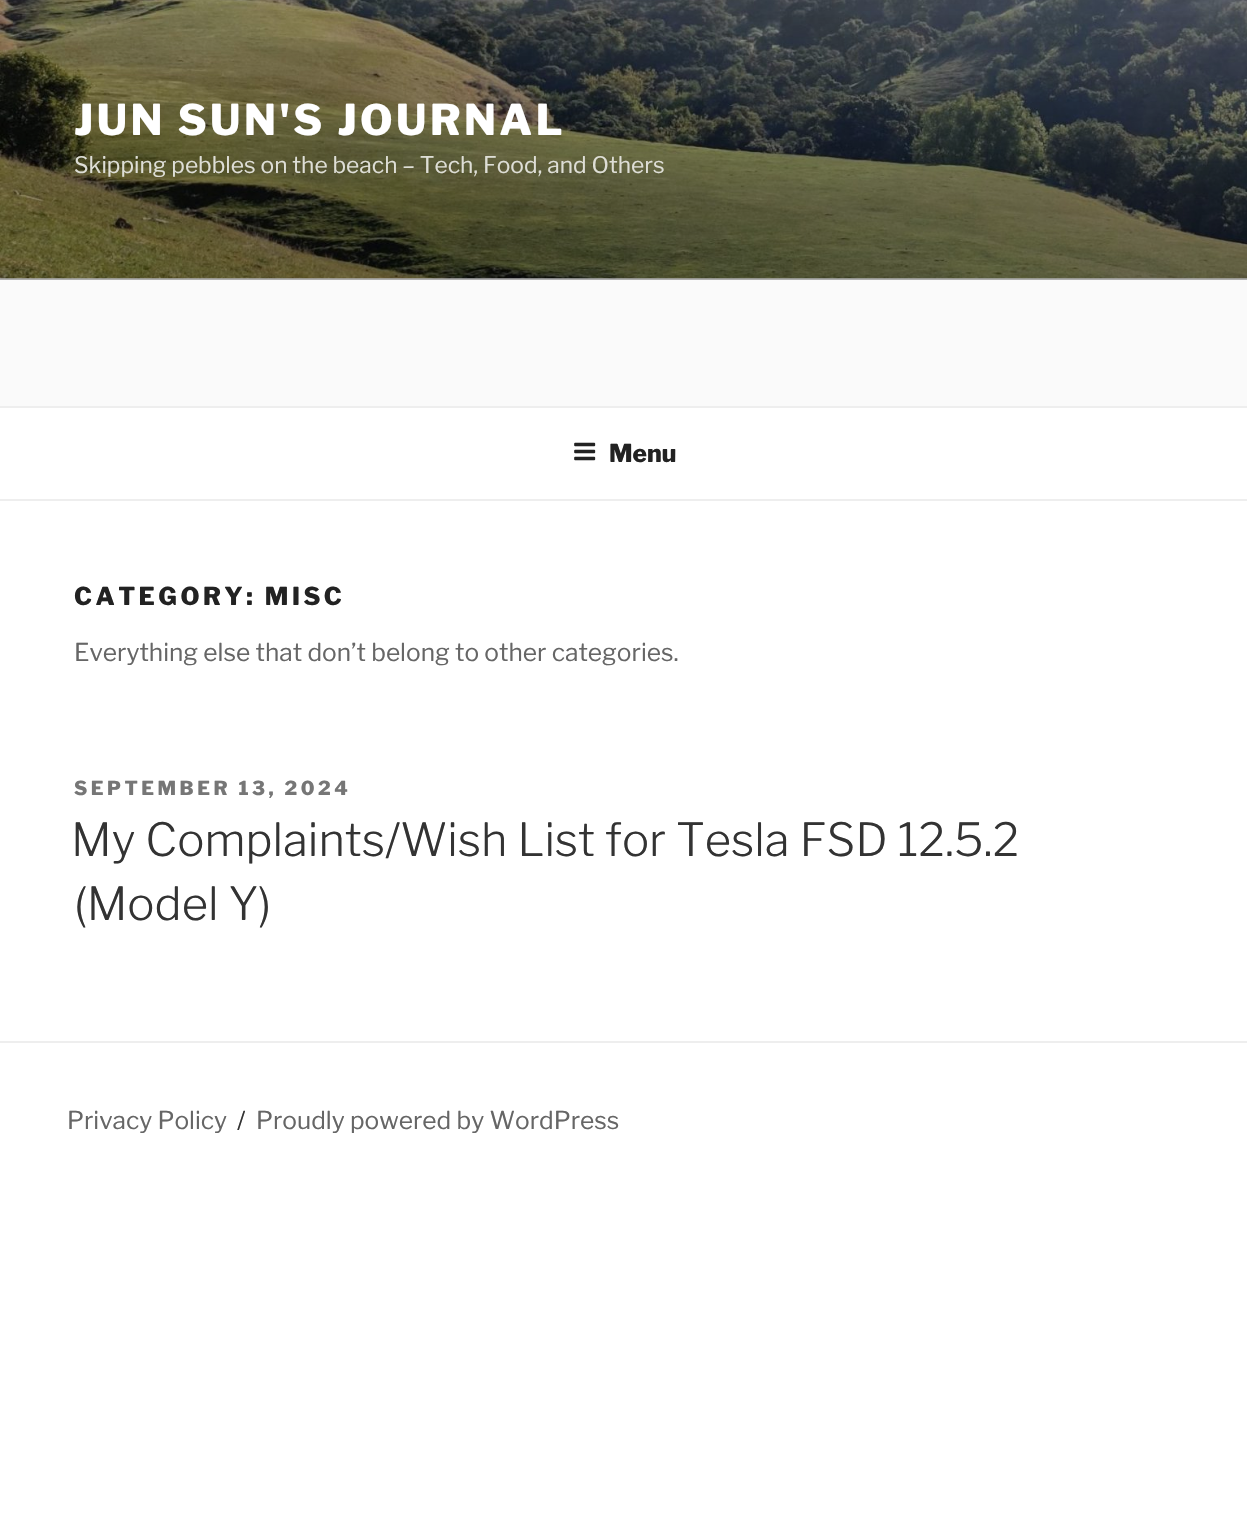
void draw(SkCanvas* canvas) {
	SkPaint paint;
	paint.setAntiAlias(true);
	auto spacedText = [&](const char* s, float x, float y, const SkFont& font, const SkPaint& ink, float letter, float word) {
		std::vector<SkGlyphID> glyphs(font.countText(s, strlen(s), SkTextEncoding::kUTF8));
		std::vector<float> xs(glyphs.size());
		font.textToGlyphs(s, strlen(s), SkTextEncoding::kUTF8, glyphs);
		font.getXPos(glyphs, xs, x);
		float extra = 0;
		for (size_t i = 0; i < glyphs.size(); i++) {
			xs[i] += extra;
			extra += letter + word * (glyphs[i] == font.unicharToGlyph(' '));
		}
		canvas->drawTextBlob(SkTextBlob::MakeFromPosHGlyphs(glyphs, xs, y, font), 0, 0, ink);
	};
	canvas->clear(0xffffffff);
	paint.setColor(0xfffafafa);
	canvas->drawRect(SkRect::MakeXYWH(0, 278, 1247, 128), paint);
	canvas->drawImageRect(SkImages::DeferredFromEncodedData(SkData::MakeFromFileName("img1.png")), SkRect::MakeXYWH(0, 0, 1247, 279), SkSamplingOptions());
	{
		const SkColor colors[] = {0x00000000, 0x4d000000, 0x4d000000};
		const float stops[] = {0, 0.75, 1};
		const SkPoint ends[] = {{624, 0}, {624, 280}};
		paint.setShader(SkGradientShader::MakeLinear(ends, colors, stops, 3, SkTileMode::kClamp));
		paint.setAlpha(255);
	}
	canvas->drawRect(SkRect::MakeXYWH(0, 15, 1247, 265), paint);
	SkFont f1(fontMgr->matchFamilyStyle("Libre Franklin", SkFontStyle(800, SkFontStyle::kNormal_Width, SkFontStyle::kUpright_Slant)), 42);
	f1.setSubpixel(true);
	paint.setShader(nullptr);
	paint.setColor(0xffffffff);
	spacedText("JUN SUN'S JOURNAL", 74, 135, f1, paint, 3.4, 0);
	SkFont f2(fontMgr->matchFamilyStyle("Libre Franklin", SkFontStyle::Normal()), 22.75);
	f2.setSubpixel(true);
	paint.setColor(0xffdeded6);
	canvas->drawString("Skipping pebbles on the beach – Tech, Food, and Others", 74, 173, f2, paint);
	paint.setColor(0xffeeeeee);
	canvas->drawRect(SkRect::MakeXYWH(0, 406, 1247, 2), paint);
	canvas->drawRect(SkRect::MakeXYWH(0, 499, 1247, 2), paint);
	canvas->drawImageRect(SkImages::DeferredFromEncodedData(SkData::MakeFromFileName("img2.png")), SkRect::MakeXYWH(574, 442, 22, 19), SkSamplingOptions());
	SkFont f3(fontMgr->matchFamilyStyle("Libre Franklin", SkFontStyle(800, SkFontStyle::kNormal_Width, SkFontStyle::kUpright_Slant)), 24.5);
	f3.setSubpixel(true);
	paint.setColor(0xff222222);
	canvas->drawString("Menu", 609, 462, f3, paint);
	spacedText("CATEGORY: MISC", 74, 605, f3, paint, 3.5, 0);
	SkFont f4(fontMgr->matchFamilyStyle("Libre Franklin", SkFontStyle::Normal()), 24.5);
	f4.setSubpixel(true);
	paint.setColor(0xff666666);
	canvas->drawString("Everything else that don’t belong to other categories.", 74, 661, f4, paint);
	SkFont f5(fontMgr->matchFamilyStyle("Libre Franklin", SkFontStyle(800, SkFontStyle::kNormal_Width, SkFontStyle::kUpright_Slant)), 19.25);
	f5.setSubpixel(true);
	paint.setColor(0xff767676);
	spacedText("SEPTEMBER 13, 2024", 74, 795, f5, paint, 3.5, 0);
	SkFont f6(fontMgr->matchFamilyStyle("Libre Franklin", SkFontStyle(300, SkFontStyle::kNormal_Width, SkFontStyle::kUpright_Slant)), 45.5);
	f6.setSubpixel(true);
	paint.setColor(0xff333333);
	canvas->drawString("My Complaints/Wish List for Tesla FSD 12.5.2", 71, 856, f6, paint);
	canvas->drawString("(Model Y)", 74, 920, f6, paint);
	paint.setColor(0xffeeeeee);
	canvas->drawRect(SkRect::MakeXYWH(0, 1041, 1247, 2), paint);
	paint.setColor(0xff666666);
	canvas->drawString("Privacy Policy", 67, 1129, f4, paint);
	paint.setColor(0xff333333);
	canvas->drawString("/", 237, 1129, f4, paint);
	paint.setColor(0xff666666);
	canvas->drawString("Proudly powered by WordPress", 256, 1129, f4, paint);
}
